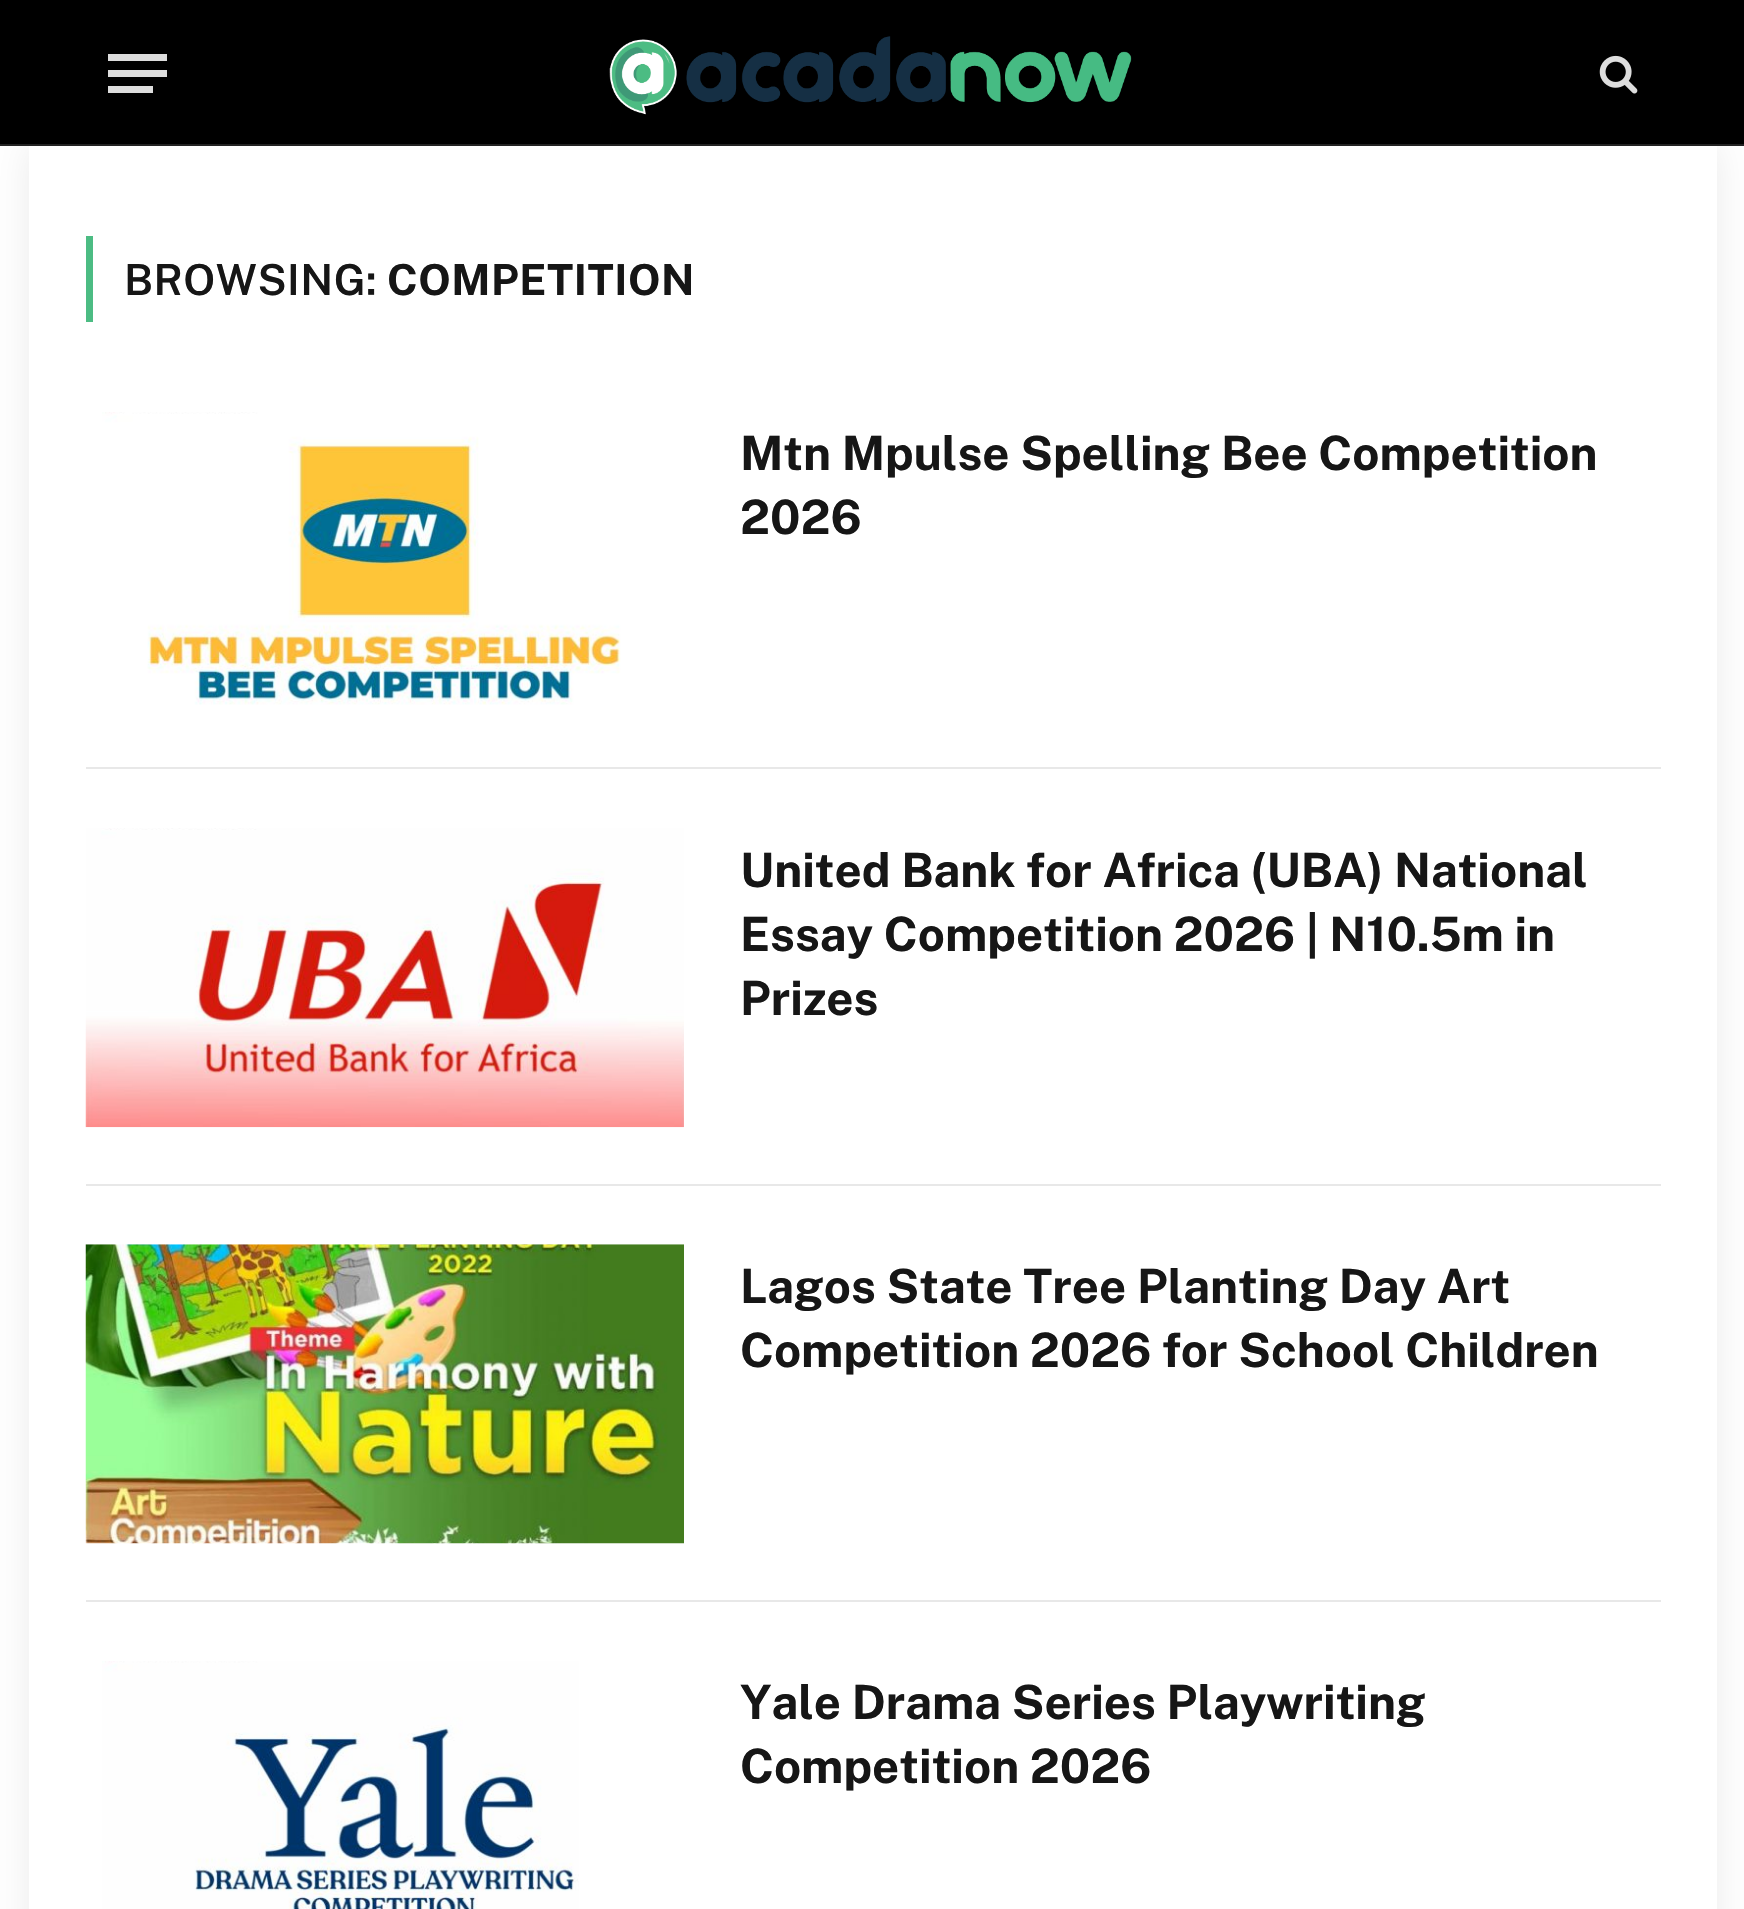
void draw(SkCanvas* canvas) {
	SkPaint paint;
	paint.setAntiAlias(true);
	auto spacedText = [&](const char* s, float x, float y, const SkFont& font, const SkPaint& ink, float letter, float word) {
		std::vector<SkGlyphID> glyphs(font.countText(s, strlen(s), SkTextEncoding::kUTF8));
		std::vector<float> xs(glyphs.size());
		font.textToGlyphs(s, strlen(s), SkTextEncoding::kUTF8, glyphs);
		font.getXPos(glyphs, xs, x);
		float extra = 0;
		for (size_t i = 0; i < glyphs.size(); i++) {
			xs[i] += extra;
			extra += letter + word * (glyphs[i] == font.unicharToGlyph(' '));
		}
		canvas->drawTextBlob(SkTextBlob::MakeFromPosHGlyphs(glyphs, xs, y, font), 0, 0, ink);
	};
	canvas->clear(0xffffffff);
	paint.setColor(0x14000000);
	paint.setMaskFilter(SkMaskFilter::MakeBlur(kNormal_SkBlurStyle, 17));
	canvas->drawRect(SkRect::MakeXYWH(29, 146, 1688, 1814), paint);
	paint.setMaskFilter(nullptr);
	paint.setColor(0xff000000);
	canvas->drawRect(SkRect::MakeXYWH(0, 0, 1744, 144), paint);
	paint.setColor(0xff222222);
	canvas->drawRect(SkRect::MakeXYWH(0, 144, 1744, 2), paint);
	paint.setColor(0xffdddddd);
	canvas->drawRect(SkRect::MakeXYWH(108, 86, 45, 7), paint);
	canvas->drawRect(SkRect::MakeXYWH(108, 54, 59, 7), paint);
	canvas->drawRect(SkRect::MakeXYWH(108, 70, 59, 7), paint);
	canvas->drawImageRect(SkImages::DeferredFromEncodedData(SkData::MakeFromFileName("img1.png")), SkRect::MakeXYWH(609, 36, 523, 79), SkSamplingOptions());
	canvas->drawImageRect(SkImages::DeferredFromEncodedData(SkData::MakeFromFileName("img2.png")), SkRect::MakeXYWH(1599, 55, 39, 39), SkSamplingOptions());
	paint.setColor(0xffffffff);
	canvas->drawRect(SkRect::MakeXYWH(29, 146, 1688, 1763), paint);
	paint.setColor(0xff4cbc83);
	canvas->drawRect(SkRect::MakeXYWH(86, 236, 7, 86), paint);
	SkFont f1(fontMgr->matchFamilyStyle("Public Sans", SkFontStyle(600, SkFontStyle::kNormal_Width, SkFontStyle::kUpright_Slant)), 42.75);
	f1.setSubpixel(true);
	paint.setColor(0xff161616);
	spacedText("BROWSING:", 124, 295, f1, paint, 0.5, 0);
	SkFont f2(fontMgr->matchFamilyStyle("Public Sans", SkFontStyle::Bold()), 42.75);
	f2.setSubpixel(true);
	spacedText("COMPETITION", 387, 295, f2, paint, 0.5, 0);
	canvas->drawImageRect(SkImages::DeferredFromEncodedData(SkData::MakeFromFileName("img3.png")), SkRect::MakeXYWH(102, 412, 519, 293), SkSamplingOptions());
	SkFont f3(fontMgr->matchFamilyStyle("Public Sans", SkFontStyle::Bold()), 47.25);
	f3.setSubpixel(true);
	canvas->drawString("Mtn Mpulse Spelling Bee Competition", 740, 470, f3, paint);
	canvas->drawString("2026", 740, 534, f3, paint);
	paint.setColor(0xffe8e8e8);
	canvas->drawRect(SkRect::MakeXYWH(86, 767, 1575, 2), paint);
	canvas->drawImageRect(SkImages::DeferredFromEncodedData(SkData::MakeFromFileName("img4.png")), SkRect::MakeXYWH(85, 828, 599, 300), SkSamplingOptions());
	paint.setColor(0xff161616);
	canvas->drawString("United Bank for Africa (UBA) National", 740, 887, f3, paint);
	canvas->drawString("Essay Competition 2026 | N10.5m in", 740, 951, f3, paint);
	canvas->drawString("Prizes", 740, 1015, f3, paint);
	paint.setColor(0xffe8e8e8);
	canvas->drawRect(SkRect::MakeXYWH(86, 1184, 1575, 2), paint);
	canvas->drawImageRect(SkImages::DeferredFromEncodedData(SkData::MakeFromFileName("img5.png")), SkRect::MakeXYWH(85, 1244, 599, 300), SkSamplingOptions());
	paint.setColor(0xff161616);
	canvas->drawString("Lagos State Tree Planting Day Art", 740, 1303, f3, paint);
	canvas->drawString("Competition 2026 for School Children", 740, 1367, f3, paint);
	paint.setColor(0xffe8e8e8);
	canvas->drawRect(SkRect::MakeXYWH(86, 1600, 1575, 2), paint);
	canvas->drawImageRect(SkImages::DeferredFromEncodedData(SkData::MakeFromFileName("img6.png")), SkRect::MakeXYWH(102, 1661, 477, 248), SkSamplingOptions());
	paint.setColor(0xff161616);
	canvas->drawString("Yale Drama Series Playwriting", 740, 1719, f3, paint);
	canvas->drawString("Competition 2026", 740, 1783, f3, paint);
}
